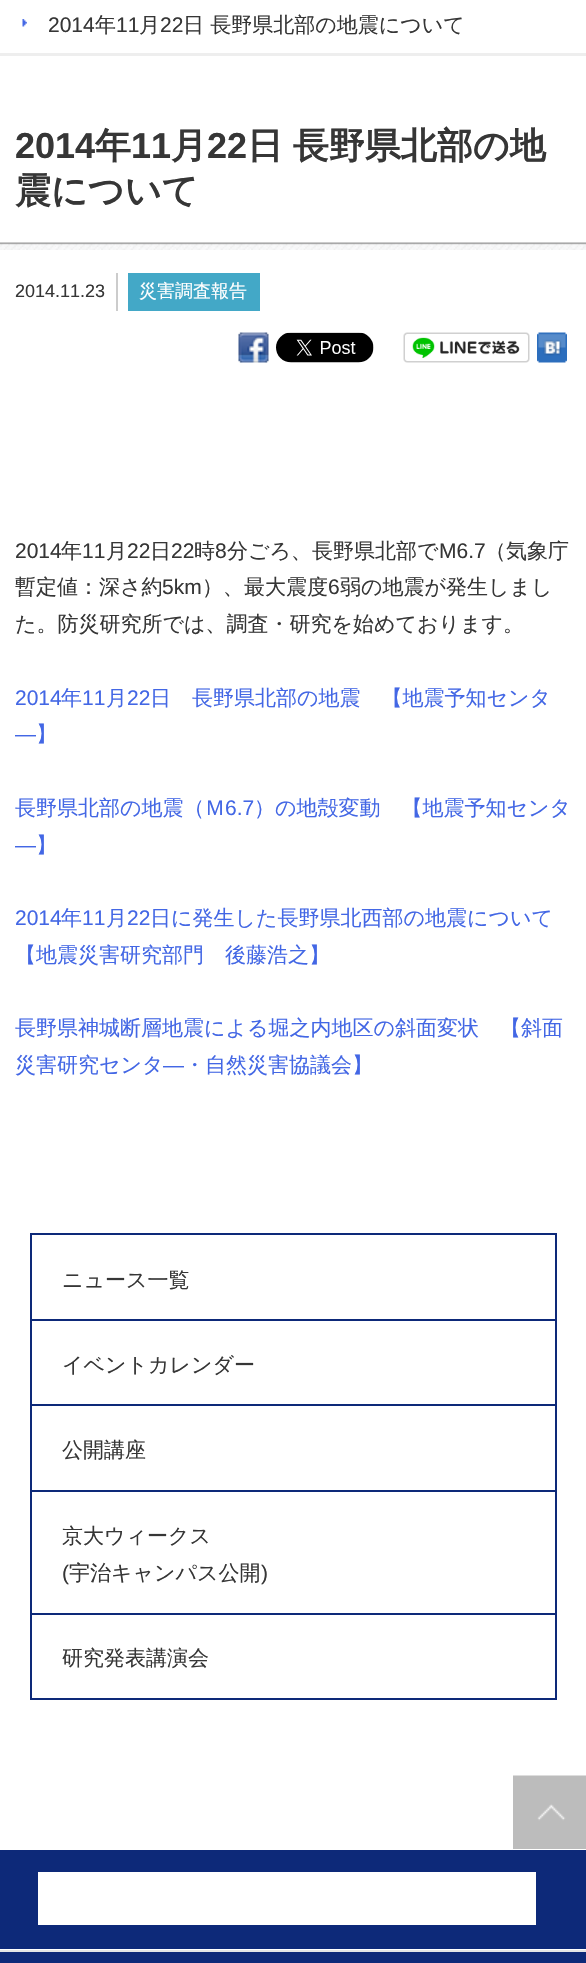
void draw(SkCanvas* canvas) {
	SkPaint paint;
	paint.setAntiAlias(true);
	auto spacedText = [&](const char* s, float x, float y, const SkFont& font, const SkPaint& ink, float letter, float word) {
		std::vector<SkGlyphID> glyphs(font.countText(s, strlen(s), SkTextEncoding::kUTF8));
		std::vector<float> xs(glyphs.size());
		font.textToGlyphs(s, strlen(s), SkTextEncoding::kUTF8, glyphs);
		font.getXPos(glyphs, xs, x);
		float extra = 0;
		for (size_t i = 0; i < glyphs.size(); i++) {
			xs[i] += extra;
			extra += letter + word * (glyphs[i] == font.unicharToGlyph(' '));
		}
		canvas->drawTextBlob(SkTextBlob::MakeFromPosHGlyphs(glyphs, xs, y, font), 0, 0, ink);
	};
	canvas->clear(0xffffffff);
	paint.setColor(0xffeeeeee);
	canvas->drawRect(SkRect::MakeXYWH(0, 53, 586, 3), paint);
	canvas->drawImageRect(SkImages::DeferredFromEncodedData(SkData::MakeFromFileName("img1.png")), SkRect::MakeXYWH(22, 19, 5, 8), SkSamplingOptions());
	SkFont f1(fontMgr->matchFamilyStyle("Liberation Sans", SkFontStyle::Normal()), 21);
	f1.setSubpixel(true);
	paint.setColor(0xff363636);
	canvas->drawString("2014", 48, 32, f1, paint);
	SkFont f2(fontMgr->matchFamilyStyle("WenQuanYi Zen Hei", SkFontStyle(500, SkFontStyle::kNormal_Width, SkFontStyle::kUpright_Slant)), 21);
	f2.setSubpixel(true);
	canvas->drawString("年", 95, 32, f2, paint);
	canvas->drawString("11", 116, 32, f1, paint);
	canvas->drawString("月", 139, 32, f2, paint);
	canvas->drawString("22", 160, 32, f1, paint);
	canvas->drawString("日 長野県北部の地震について", 183, 32, f2, paint);
	canvas->drawImageRect(SkImages::DeferredFromEncodedData(SkData::MakeFromFileName("img2.png")), SkRect::MakeXYWH(0, 242, 586, 8), SkSamplingOptions());
	SkFont f3(fontMgr->matchFamilyStyle("Liberation Sans", SkFontStyle::Bold()), 36);
	f3.setSubpixel(true);
	canvas->drawString("2014", 15, 158, f3, paint);
	SkFont f4(fontMgr->matchFamilyStyle("WenQuanYi Zen Hei", SkFontStyle::Bold()), 36);
	f4.setSubpixel(true);
	canvas->drawString("年", 95, 158, f4, paint);
	canvas->drawString("11", 131, 158, f3, paint);
	canvas->drawString("月", 171, 158, f4, paint);
	canvas->drawString("22", 207, 158, f3, paint);
	spacedText("日 長野県北部の地", 247, 158, f4, paint, 0, -1);
	canvas->drawString("震について", 15, 203, f4, paint);
	SkFont f5(fontMgr->matchFamilyStyle("Liberation Sans", SkFontStyle::Normal()), 18);
	f5.setSubpixel(true);
	canvas->drawString("2014.11.23", 15, 297, f5, paint);
	paint.setColor(0xffcccccc);
	canvas->drawRect(SkRect::MakeXYWH(116, 273, 2, 38), paint);
	paint.setColor(0xff43a8c7);
	canvas->drawRect(SkRect::MakeXYWH(128, 273, 132, 38), paint);
	SkFont f6(fontMgr->matchFamilyStyle("WenQuanYi Zen Hei", SkFontStyle(500, SkFontStyle::kNormal_Width, SkFontStyle::kUpright_Slant)), 18);
	f6.setSubpixel(true);
	paint.setColor(0xffffffff);
	canvas->drawString("災害調査報告", 139, 297, f6, paint);
	canvas->drawImageRect(SkImages::DeferredFromEncodedData(SkData::MakeFromFileName("img3.png")), SkRect::MakeXYWH(238, 332, 31, 31), SkSamplingOptions());
	canvas->drawImageRect(SkImages::DeferredFromEncodedData(SkData::MakeFromFileName("img4.png")), SkRect::MakeXYWH(276, 332, 98, 31), SkSamplingOptions());
	canvas->drawImageRect(SkImages::DeferredFromEncodedData(SkData::MakeFromFileName("img5.png")), SkRect::MakeXYWH(403, 332, 127, 31), SkSamplingOptions());
	canvas->drawImageRect(SkImages::DeferredFromEncodedData(SkData::MakeFromFileName("img6.png")), SkRect::MakeXYWH(537, 332, 30, 31), SkSamplingOptions());
	paint.setColor(0xff363636);
	canvas->drawString("2014", 15, 558, f1, paint);
	canvas->drawString("年", 61, 558, f2, paint);
	canvas->drawString("11", 82, 558, f1, paint);
	canvas->drawString("月", 106, 558, f2, paint);
	canvas->drawString("22", 127, 558, f1, paint);
	canvas->drawString("日", 150, 558, f2, paint);
	canvas->drawString("22", 171, 558, f1, paint);
	canvas->drawString("時", 194, 558, f2, paint);
	canvas->drawString("8", 215, 558, f1, paint);
	canvas->drawString("分ごろ、長野県北部で", 227, 558, f2, paint);
	canvas->drawString("M6.7", 439, 558, f1, paint);
	canvas->drawString("（気象庁", 485, 558, f2, paint);
	canvas->drawString("暫定値：深さ約", 15, 594, f2, paint);
	canvas->drawString("5km", 162, 594, f1, paint);
	canvas->drawString("）、最大震度", 202, 594, f2, paint);
	canvas->drawString("6", 328, 594, f1, paint);
	canvas->drawString("弱の地震が発生しまし", 340, 594, f2, paint);
	canvas->drawString("た。防災研究所では、調査・研究を始めております。", 15, 631, f2, paint);
	paint.setColor(0xff4367e5);
	canvas->drawString("2014", 15, 705, f1, paint);
	canvas->drawString("年", 61, 705, f2, paint);
	canvas->drawString("11", 82, 705, f1, paint);
	canvas->drawString("月", 106, 705, f2, paint);
	canvas->drawString("22", 127, 705, f1, paint);
	canvas->drawString("日　長野県北部の地震　【地震予知センタ", 150, 705, f2, paint);
	canvas->drawString("―", 15, 741, f1, paint);
	canvas->drawString("】", 36, 741, f2, paint);
	canvas->drawString("長野県北部の地震（Ｍ", 15, 815, f2, paint);
	canvas->drawString("6.7", 225, 815, f1, paint);
	canvas->drawString("）の地殻変動　【地震予知センタ", 254, 815, f2, paint);
	canvas->drawString("―", 15, 852, f1, paint);
	canvas->drawString("】", 36, 852, f2, paint);
	canvas->drawString("2014", 15, 925, f1, paint);
	canvas->drawString("年", 61, 925, f2, paint);
	canvas->drawString("11", 82, 925, f1, paint);
	canvas->drawString("月", 106, 925, f2, paint);
	canvas->drawString("22", 127, 925, f1, paint);
	canvas->drawString("日に発生した長野県北西部の地震について", 150, 925, f2, paint);
	canvas->drawString("【地震災害研究部門　後藤浩之】", 15, 962, f2, paint);
	canvas->drawString("長野県神城断層地震による堀之内地区の斜面変状　【斜面", 15, 1035, f2, paint);
	canvas->drawString("災害研究センタ", 15, 1072, f2, paint);
	canvas->drawString("―", 163, 1072, f1, paint);
	canvas->drawString("・自然災害協議会】", 184, 1072, f2, paint);
	paint.setColor(0xff0d2979);
	canvas->drawRect(SkRect::MakeXYWH(30, 1233, 527, 2), paint);
	canvas->drawRect(SkRect::MakeXYWH(555, 1235, 2, 85), paint);
	canvas->drawRect(SkRect::MakeXYWH(30, 1319, 527, 2), paint);
	canvas->drawRect(SkRect::MakeXYWH(30, 1235, 2, 85), paint);
	paint.setColor(0xff363636);
	canvas->drawString("ニュース一覧", 62, 1287, f2, paint);
	paint.setColor(0xff0d2979);
	canvas->drawRect(SkRect::MakeXYWH(555, 1320, 2, 171), paint);
	canvas->drawRect(SkRect::MakeXYWH(30, 1404, 527, 2), paint);
	canvas->drawRect(SkRect::MakeXYWH(30, 1320, 2, 86), paint);
	paint.setColor(0xff363636);
	canvas->drawString("イベントカレンダー", 62, 1372, f2, paint);
	paint.setColor(0xff0d2979);
	canvas->drawRect(SkRect::MakeXYWH(30, 1490, 527, 2), paint);
	canvas->drawRect(SkRect::MakeXYWH(30, 1406, 2, 85), paint);
	paint.setColor(0xff363636);
	canvas->drawString("公開講座", 62, 1457, f2, paint);
	paint.setColor(0xff0d2979);
	canvas->drawRect(SkRect::MakeXYWH(555, 1491, 2, 123), paint);
	canvas->drawRect(SkRect::MakeXYWH(30, 1613, 527, 2), paint);
	canvas->drawRect(SkRect::MakeXYWH(30, 1491, 2, 123), paint);
	paint.setColor(0xff363636);
	canvas->drawString("京大ウィークス", 62, 1543, f2, paint);
	canvas->drawString("(", 62, 1580, f1, paint);
	canvas->drawString("宇治キャンパス公開", 69, 1580, f2, paint);
	canvas->drawString(")", 261, 1580, f1, paint);
	paint.setColor(0xff0d2979);
	canvas->drawRect(SkRect::MakeXYWH(555, 1614, 2, 86), paint);
	canvas->drawRect(SkRect::MakeXYWH(30, 1698, 527, 2), paint);
	canvas->drawRect(SkRect::MakeXYWH(30, 1614, 2, 86), paint);
	paint.setColor(0xff363636);
	canvas->drawString("研究発表講演会", 62, 1665, f2, paint);
	paint.setColor(0xff0d2979);
	canvas->drawRect(SkRect::MakeXYWH(0, 1850, 586, 113), paint);
	canvas->drawImageRect(SkImages::DeferredFromEncodedData(SkData::MakeFromFileName("img7.png")), SkRect::MakeXYWH(513, 1775, 73, 74), SkSamplingOptions());
	paint.setColor(0xffffffff);
	canvas->drawRect(SkRect::MakeXYWH(0, 1949, 586, 1), paint);
	canvas->drawRect(SkRect::MakeXYWH(38, 1872, 498, 53), paint);
	paint.setColor(0xffe3e4e6);
	canvas->drawRect(SkRect::MakeXYWH(0, 1950, 586, 2), paint);
}
